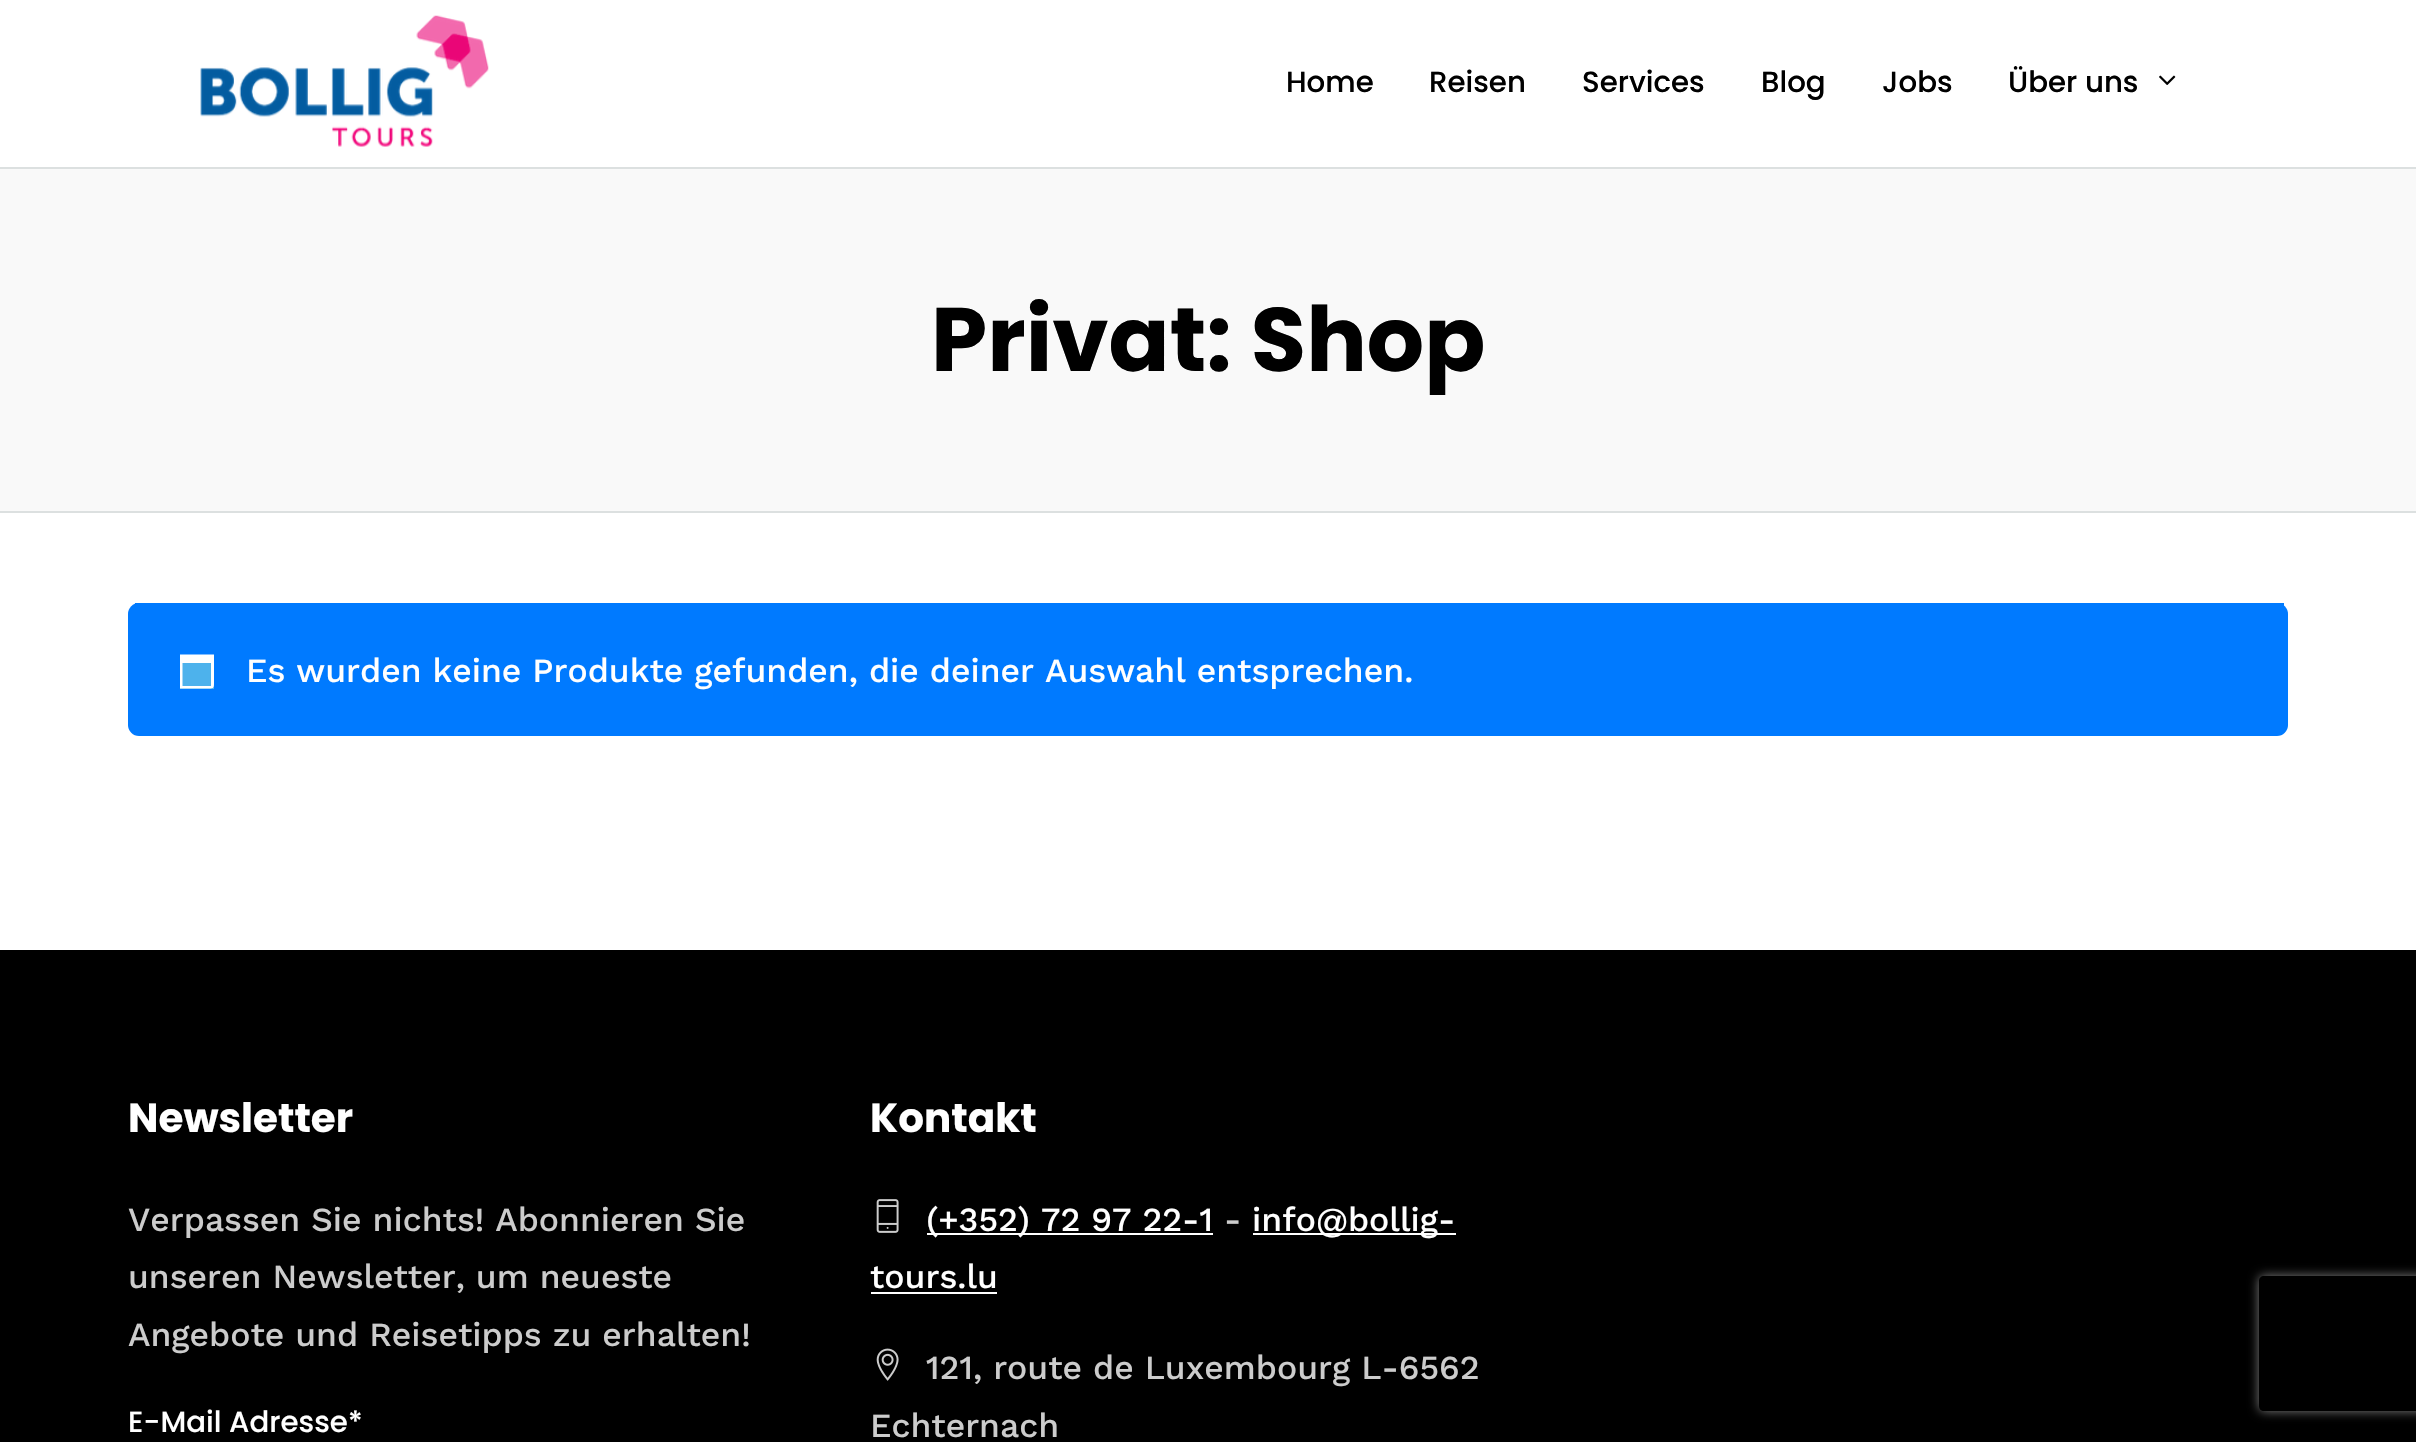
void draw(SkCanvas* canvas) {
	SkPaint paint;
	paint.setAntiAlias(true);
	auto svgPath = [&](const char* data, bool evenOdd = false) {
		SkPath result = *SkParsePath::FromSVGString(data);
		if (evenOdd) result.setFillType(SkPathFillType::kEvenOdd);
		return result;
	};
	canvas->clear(0xffffffff);
	paint.setColor(0xffdce0e0);
	canvas->drawRect(SkRect::MakeXYWH(0, 167, 2416, 2), paint);
	canvas->drawImageRect(SkImages::DeferredFromEncodedData(SkData::MakeFromFileName("img1.png")), SkRect::MakeXYWH(200, 15, 289, 132), SkSamplingOptions());
	SkFont f1(fontMgr->matchFamilyStyle("Poppins", SkFontStyle(500, SkFontStyle::kNormal_Width, SkFontStyle::kUpright_Slant)), 29.25);
	f1.setSubpixel(true);
	paint.setColor(0xff000000);
	canvas->drawString("Home", 1286, 92, f1, paint);
	canvas->drawString("Reisen", 1429, 92, f1, paint);
	canvas->drawString("Services", 1582, 92, f1, paint);
	canvas->drawString("Blog", 1761, 92, f1, paint);
	canvas->drawString("Jobs", 1882, 92, f1, paint);
	canvas->drawString("Über uns", 2008, 92, f1, paint);
	canvas->drawImageRect(SkImages::DeferredFromEncodedData(SkData::MakeFromFileName("img2.png")), SkRect::MakeXYWH(2159, 75, 17, 10), SkSamplingOptions());
	paint.setColor(0xfff9f9f9);
	canvas->drawRect(SkRect::MakeXYWH(0, 169, 2416, 342), paint);
	paint.setColor(0xffdce0e0);
	canvas->drawRect(SkRect::MakeXYWH(0, 511, 2416, 2), paint);
	SkFont f2(fontMgr->matchFamilyStyle("Poppins", SkFontStyle::Bold()), 90);
	f2.setSubpixel(true);
	paint.setColor(0xff000000);
	canvas->drawString("Privat: Shop", 931, 371, f2, paint);
	paint.setColor(0xff007aff);
	canvas->drawRoundRect(SkRect::MakeXYWH(128, 603, 2160, 133), 11, 11, paint);
	canvas->drawRect(SkRect::MakeXYWH(135, 603, 2149, 3), paint);
	paint.setColor(0xff4db2ec);
	canvas->drawRect(SkRect::MakeXYWH(180, 663, 34, 26), paint);
	paint.setColor(0xffffffff);
	canvas->drawPath(svgPath("M211 663H182.5V686H211ZM214 654.5V680.5C214 689 214.5 688.5 206 688.5H180V654.5Z"), paint);
	SkFont f3(fontMgr->matchFamilyStyle("Work Sans", SkFontStyle(500, SkFontStyle::kNormal_Width, SkFontStyle::kUpright_Slant)), 33.75);
	f3.setSubpixel(true);
	canvas->drawString("Es wurden keine Produkte gefunden, die deiner Auswahl entsprechen.", 246, 682, f3, paint);
	paint.setColor(0xff000000);
	canvas->drawRect(SkRect::MakeXYWH(0, 950, 2416, 492), paint);
	SkFont f4(fontMgr->matchFamilyStyle("Poppins", SkFontStyle::Bold()), 40.5);
	f4.setSubpixel(true);
	paint.setColor(0xffffffff);
	canvas->drawString("Newsletter", 128, 1132, f4, paint);
	paint.setColor(0xffcccccc);
	canvas->drawString("Verpassen Sie nichts! Abonnieren Sie", 128, 1231, f3, paint);
	canvas->drawString("unseren Newsletter, um neueste", 128, 1288, f3, paint);
	canvas->drawString("Angebote und Reisetipps zu erhalten!", 128, 1346, f3, paint);
	paint.setColor(0xffffffff);
	canvas->drawString("E-Mail Adresse*", 128, 1432, f1, paint);
	canvas->drawString("Kontakt", 870, 1132, f4, paint);
	canvas->drawImageRect(SkImages::DeferredFromEncodedData(SkData::MakeFromFileName("img3.png")), SkRect::MakeXYWH(876, 1199, 23, 34), SkSamplingOptions());
	canvas->drawRect(SkRect::MakeXYWH(927, 1233, 286, 2), paint);
	canvas->drawString("(+352) 72 97 22-1", 926, 1231, f3, paint);
	paint.setColor(0xffcccccc);
	canvas->drawString("-", 1224, 1231, f3, paint);
	paint.setColor(0xffffffff);
	canvas->drawRect(SkRect::MakeXYWH(1253, 1233, 203, 2), paint);
	canvas->drawString("info@bollig-", 1252, 1231, f3, paint);
	canvas->drawString("tours.lu", 870, 1288, f3, paint);
	canvas->drawRect(SkRect::MakeXYWH(871, 1292, 126, 2), paint);
	canvas->drawImageRect(SkImages::DeferredFromEncodedData(SkData::MakeFromFileName("img4.png")), SkRect::MakeXYWH(876, 1348, 23, 33), SkSamplingOptions());
	paint.setColor(0xffcccccc);
	canvas->drawString("121, route de Luxembourg L-6562", 926, 1379, f3, paint);
	canvas->drawString("Echternach", 870, 1437, f3, paint);
	canvas->save();
	canvas->clipPath(svgPath("M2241 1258H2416V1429H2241ZM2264 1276H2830C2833 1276 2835 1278 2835 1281V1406C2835 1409 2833 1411 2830 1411H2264C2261 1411 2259 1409 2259 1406V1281C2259 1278 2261 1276 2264 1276Z", true), true);
	paint.setColor(0xff808080);
	paint.setMaskFilter(SkMaskFilter::MakeBlur(kNormal_SkBlurStyle, 5.5));
	canvas->drawRoundRect(SkRect::MakeXYWH(2259, 1276, 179, 135), 5, 5, paint);
	paint.setMaskFilter(nullptr);
	canvas->restore();
}
